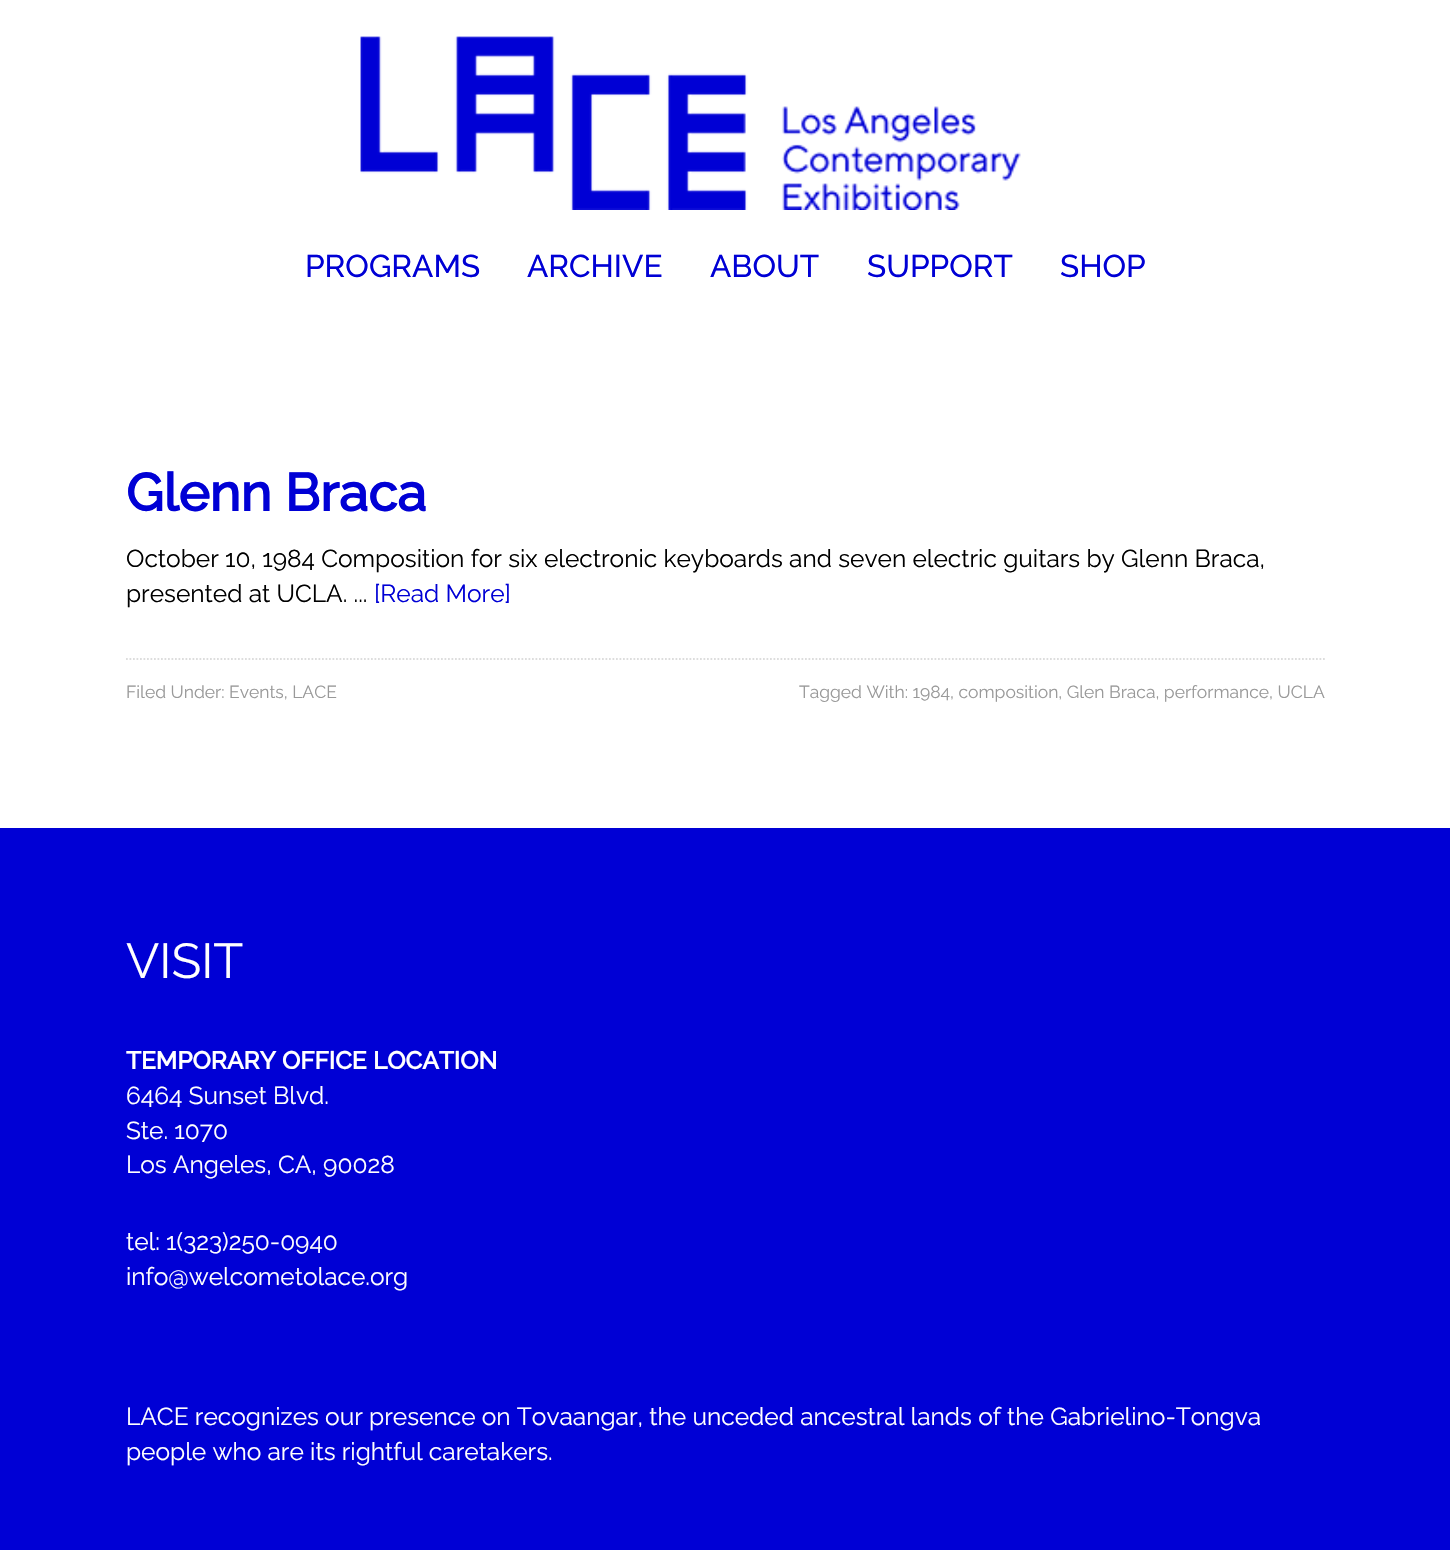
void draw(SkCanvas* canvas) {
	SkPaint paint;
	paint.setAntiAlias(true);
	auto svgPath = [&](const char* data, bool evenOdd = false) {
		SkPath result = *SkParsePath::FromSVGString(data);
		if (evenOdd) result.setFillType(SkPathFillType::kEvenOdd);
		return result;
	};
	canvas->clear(0xffffffff);
	canvas->drawImageRect(SkImages::DeferredFromEncodedData(SkData::MakeFromFileName("img1.png")), SkRect::MakeXYWH(360, 36, 661, 174), SkSamplingOptions());
	SkFont f1(fontMgr->matchFamilyStyle("Raleway", SkFontStyle(500, SkFontStyle::kNormal_Width, SkFontStyle::kUpright_Slant)), 31.5);
	f1.setSubpixel(true);
	paint.setColor(0xff0000d5);
	canvas->drawString("PROGRAMS", 305, 277, f1, paint);
	canvas->drawString("ARCHIVE", 527, 277, f1, paint);
	canvas->drawString("ABOUT", 710, 277, f1, paint);
	canvas->drawString("SUPPORT", 867, 277, f1, paint);
	canvas->drawString("SHOP", 1060, 277, f1, paint);
	SkFont f2(fontMgr->matchFamilyStyle("Raleway", SkFontStyle::Bold()), 52.5);
	f2.setSubpixel(true);
	canvas->drawString("Glenn Braca", 126, 511, f2, paint);
	SkFont f3(fontMgr->matchFamilyStyle("Raleway", SkFontStyle::Normal()), 24.5);
	f3.setSubpixel(true);
	paint.setColor(0xff000000);
	canvas->drawString("October 10, 1984 Composition for six electronic keyboards and seven electric guitars by Glenn Braca,", 126, 567, f3, paint);
	canvas->drawString("presented at UCLA. ...", 126, 602, f3, paint);
	paint.setColor(0xff0000d5);
	canvas->drawString("[Read More]", 374, 602, f3, paint);
	paint.setStroke(true);
	paint.setStrokeWidth(1.8);
	paint.setColor(0xffdddddd);
	paint.setPathEffect(SkDashPathEffect::Make({{1.75f, 1.75f}}, 0));
	canvas->drawPath(svgPath("M126 659H1325"), paint);
	paint.setPathEffect(nullptr);
	SkFont f4(fontMgr->matchFamilyStyle("Raleway", SkFontStyle::Normal()), 17.5);
	f4.setSubpixel(true);
	paint.setStroke(false);
	paint.setColor(0xff999999);
	canvas->drawString("Filed Under: Events, LACE", 126, 698, f4, paint);
	canvas->drawString("Tagged With: 1984, composition, Glen Braca, performance, UCLA", 799, 698, f4, paint);
	paint.setColor(0xff0000d5);
	canvas->drawRect(SkRect::MakeXYWH(0, 828, 1450, 722), paint);
	SkFont f5(fontMgr->matchFamilyStyle("Raleway", SkFontStyle::Normal()), 49);
	f5.setSubpixel(true);
	paint.setColor(0xffffffff);
	canvas->drawString("VISIT", 126, 978, f5, paint);
	SkFont f6(fontMgr->matchFamilyStyle("Raleway", SkFontStyle::Bold()), 24.5);
	f6.setSubpixel(true);
	canvas->drawString("TEMPORARY OFFICE LOCATION", 126, 1069, f6, paint);
	canvas->drawString("6464 Sunset Blvd.", 126, 1104, f3, paint);
	canvas->drawString("Ste. 1070", 126, 1139, f3, paint);
	canvas->drawString("Los Angeles, CA, 90028", 126, 1173, f3, paint);
	canvas->drawString("tel: 1(323)250-0940", 126, 1250, f3, paint);
	canvas->drawString("info@welcometolace.org", 126, 1285, f3, paint);
	canvas->drawString("LACE recognizes our presence on Tovaangar, the unceded ancestral lands of the Gabrielino-Tongva", 126, 1425, f3, paint);
	canvas->drawString("people who are its rightful caretakers.", 126, 1460, f3, paint);
}
